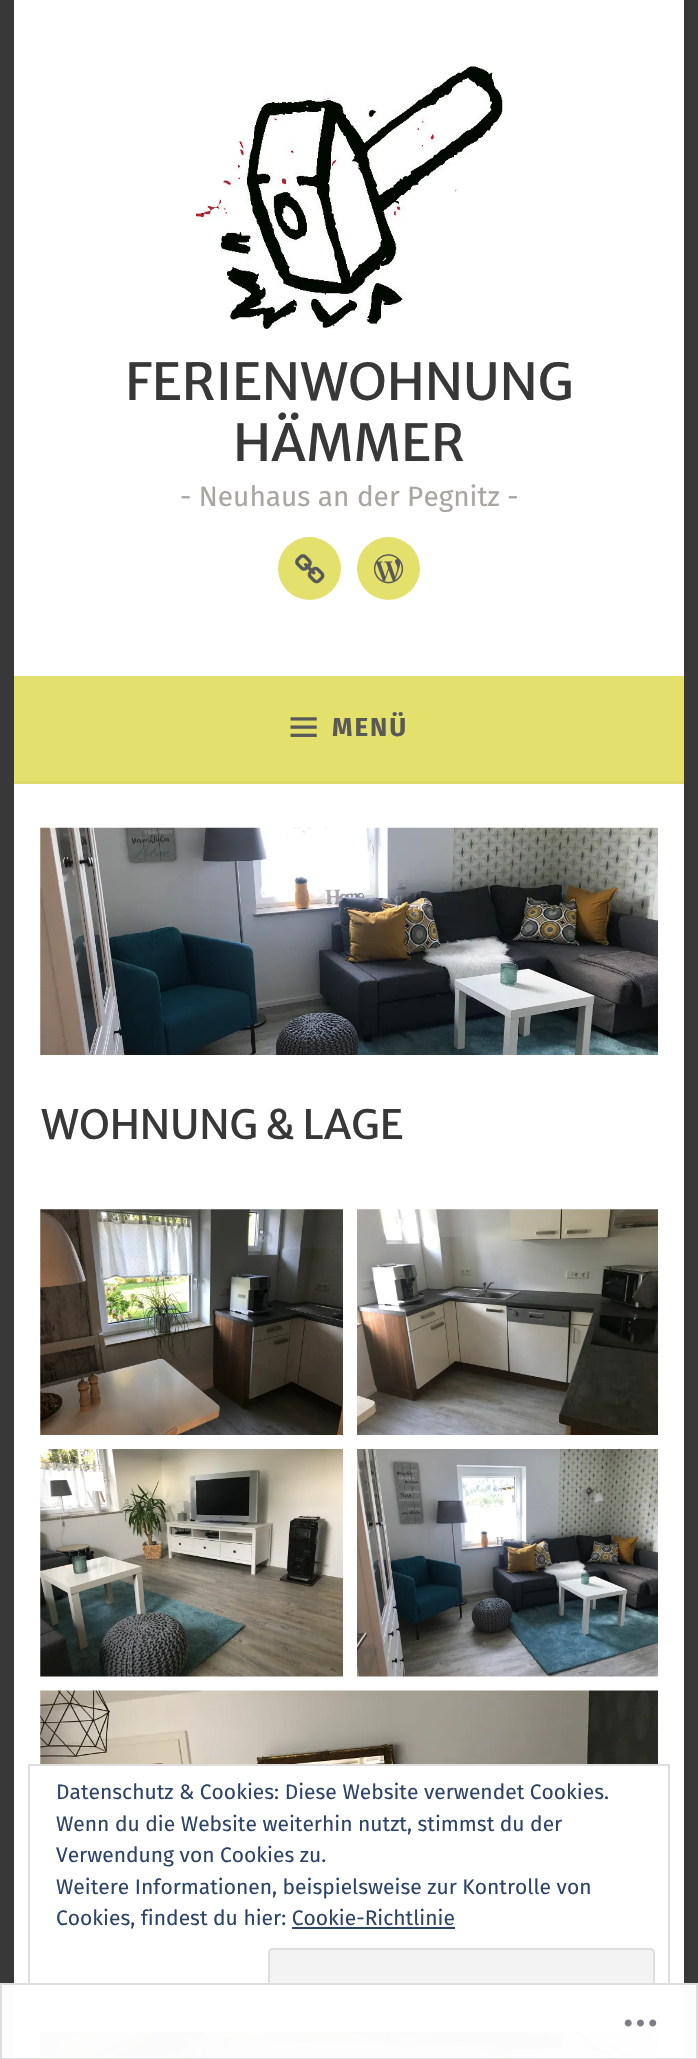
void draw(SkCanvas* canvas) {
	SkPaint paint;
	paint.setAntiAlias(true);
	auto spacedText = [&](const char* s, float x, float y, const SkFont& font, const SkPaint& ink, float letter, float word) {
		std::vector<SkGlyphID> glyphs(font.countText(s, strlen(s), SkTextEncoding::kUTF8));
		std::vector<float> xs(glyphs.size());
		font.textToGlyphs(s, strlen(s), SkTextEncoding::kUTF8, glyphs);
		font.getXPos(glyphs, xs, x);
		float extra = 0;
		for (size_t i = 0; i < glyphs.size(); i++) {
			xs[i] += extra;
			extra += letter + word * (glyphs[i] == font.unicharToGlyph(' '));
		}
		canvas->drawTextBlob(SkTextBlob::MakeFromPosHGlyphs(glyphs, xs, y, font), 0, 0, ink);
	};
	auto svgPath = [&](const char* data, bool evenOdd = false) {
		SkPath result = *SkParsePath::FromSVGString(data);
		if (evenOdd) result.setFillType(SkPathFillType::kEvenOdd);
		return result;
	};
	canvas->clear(0xff383838);
	paint.setColor(0xffffffff);
	canvas->drawRect(SkRect::MakeXYWH(14, 0, 670, 676), paint);
	canvas->drawImageRect(SkImages::DeferredFromEncodedData(SkData::MakeFromFileName("img1.png")), SkRect::MakeXYWH(196, 66, 307, 263), SkSamplingOptions());
	SkFont f1(fontMgr->matchFamilyStyle("Merriweather Sans", SkFontStyle::Normal()), 50.75);
	f1.setSubpixel(true);
	paint.setColor(0xff383838);
	canvas->drawString("FERIENWOHNUNG", 125, 400, f1, paint);
	canvas->drawString("HÄMMER", 233, 461, f1, paint);
	SkFont f2(fontMgr->matchFamilyStyle("Fira Sans", SkFontStyle::Normal()), 28);
	f2.setSubpixel(true);
	paint.setColor(0xffa8a6a1);
	canvas->drawString("- Neuhaus an der Pegnitz -", 180, 506, f2, paint);
	paint.setColor(0xffe4e06c);
	canvas->drawCircle(309.5, 568.5, 31.5, paint);
	canvas->drawImageRect(SkImages::DeferredFromEncodedData(SkData::MakeFromFileName("img2.png")), SkRect::MakeXYWH(295, 554, 30, 30), SkSamplingOptions());
	canvas->drawCircle(388.5, 568.5, 31.5, paint);
	canvas->drawImageRect(SkImages::DeferredFromEncodedData(SkData::MakeFromFileName("img3.png")), SkRect::MakeXYWH(373, 554, 31, 30), SkSamplingOptions());
	canvas->drawRect(SkRect::MakeXYWH(14, 676, 670, 105), paint);
	paint.setColor(0xffddd969);
	canvas->drawRect(SkRect::MakeXYWH(14, 781, 670, 3), paint);
	canvas->drawImageRect(SkImages::DeferredFromEncodedData(SkData::MakeFromFileName("img4.png")), SkRect::MakeXYWH(290, 717, 27, 20), SkSamplingOptions());
	SkFont f3(fontMgr->matchFamilyStyle("Fira Sans", SkFontStyle::Bold()), 26);
	f3.setSubpixel(true);
	paint.setColor(0xff595959);
	spacedText("MENÜ", 332, 736, f3, paint, 2, 0);
	paint.setColor(0xffffffff);
	canvas->drawRect(SkRect::MakeXYWH(14, 784, 670, 1275), paint);
	canvas->drawImageRect(SkImages::DeferredFromEncodedData(SkData::MakeFromFileName("img5.png")), SkRect::MakeXYWH(40, 827, 618, 228), SkSamplingOptions());
	SkFont f4(fontMgr->matchFamilyStyle("Merriweather Sans", SkFontStyle::Normal()), 40.25);
	f4.setSubpixel(true);
	paint.setColor(0xff383838);
	canvas->drawString("WOHNUNG & LAGE", 41, 1139, f4, paint);
	canvas->drawImageRect(SkImages::DeferredFromEncodedData(SkData::MakeFromFileName("img6.png")), SkRect::MakeXYWH(40, 1209, 303, 226), SkSamplingOptions());
	canvas->drawImageRect(SkImages::DeferredFromEncodedData(SkData::MakeFromFileName("img7.png")), SkRect::MakeXYWH(357, 1209, 301, 226), SkSamplingOptions());
	canvas->drawImageRect(SkImages::DeferredFromEncodedData(SkData::MakeFromFileName("img8.png")), SkRect::MakeXYWH(40, 1449, 303, 228), SkSamplingOptions());
	canvas->drawImageRect(SkImages::DeferredFromEncodedData(SkData::MakeFromFileName("img9.png")), SkRect::MakeXYWH(357, 1449, 301, 228), SkSamplingOptions());
	canvas->drawImageRect(SkImages::DeferredFromEncodedData(SkData::MakeFromFileName("img10.png")), SkRect::MakeXYWH(40, 1690, 618, 369), SkSamplingOptions());
	paint.setColor(0xffffffff);
	canvas->drawRect(SkRect::MakeXYWH(40, 1766, 618, 264), paint);
	paint.setStroke(true);
	paint.setStrokeWidth(2);
	paint.setColor(0xffdedede);
	canvas->drawRect(SkRect::MakeXYWH(29, 1765, 640, 266), paint);
	SkFont f5(fontMgr->matchFamilyStyle("Fira Sans", SkFontStyle::Normal()), 21);
	f5.setSubpixel(true);
	paint.setStroke(false);
	paint.setColor(0xff2e4467);
	canvas->drawString("Datenschutz & Cookies: Diese Website verwendet Cookies.", 56, 1799, f5, paint);
	canvas->drawString("Wenn du die Website weiterhin nutzt, stimmst du der", 56, 1831, f5, paint);
	canvas->drawString("Verwendung von Cookies zu.", 56, 1862, f5, paint);
	canvas->drawString("Weitere Informationen, beispielsweise zur Kontrolle von", 56, 1894, f5, paint);
	canvas->drawString("Cookies, findest du hier: Cookie-Richtlinie", 56, 1925, f5, paint);
	canvas->drawRect(SkRect::MakeXYWH(292, 1927, 163, 2), paint);
	paint.setColor(0xfff3f3f3);
	canvas->drawRoundRect(SkRect::MakeXYWH(268, 1948, 387, 68), 5, 5, paint);
	paint.setColor(0xffdbdbdb);
	canvas->drawPath(svgPath("M270 2007C270 2010 270 2014 274 2014H649C653 2014 653 2010 653 2007C653 2009 651 2011 649 2011H273C271 2011 270 2009 270 2007Z"), paint);
	paint.setStroke(true);
	paint.setColor(0xffdedede);
	canvas->drawRoundRect(SkRect::MakeXYWH(269, 1949, 385, 66), 4, 4, paint);
	paint.setStroke(false);
	paint.setColor(0xfaffffff);
	canvas->drawRect(SkRect::MakeXYWH(0, 1983, 698, 76), paint);
	paint.setStroke(true);
	paint.setColor(0xfadcdcde);
	canvas->drawRect(SkRect::MakeXYWH(1, 1984, 696, 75), paint);
	canvas->drawImageRect(SkImages::DeferredFromEncodedData(SkData::MakeFromFileName("img11.png")), SkRect::MakeXYWH(624, 2019, 33, 8), SkSamplingOptions());
}
